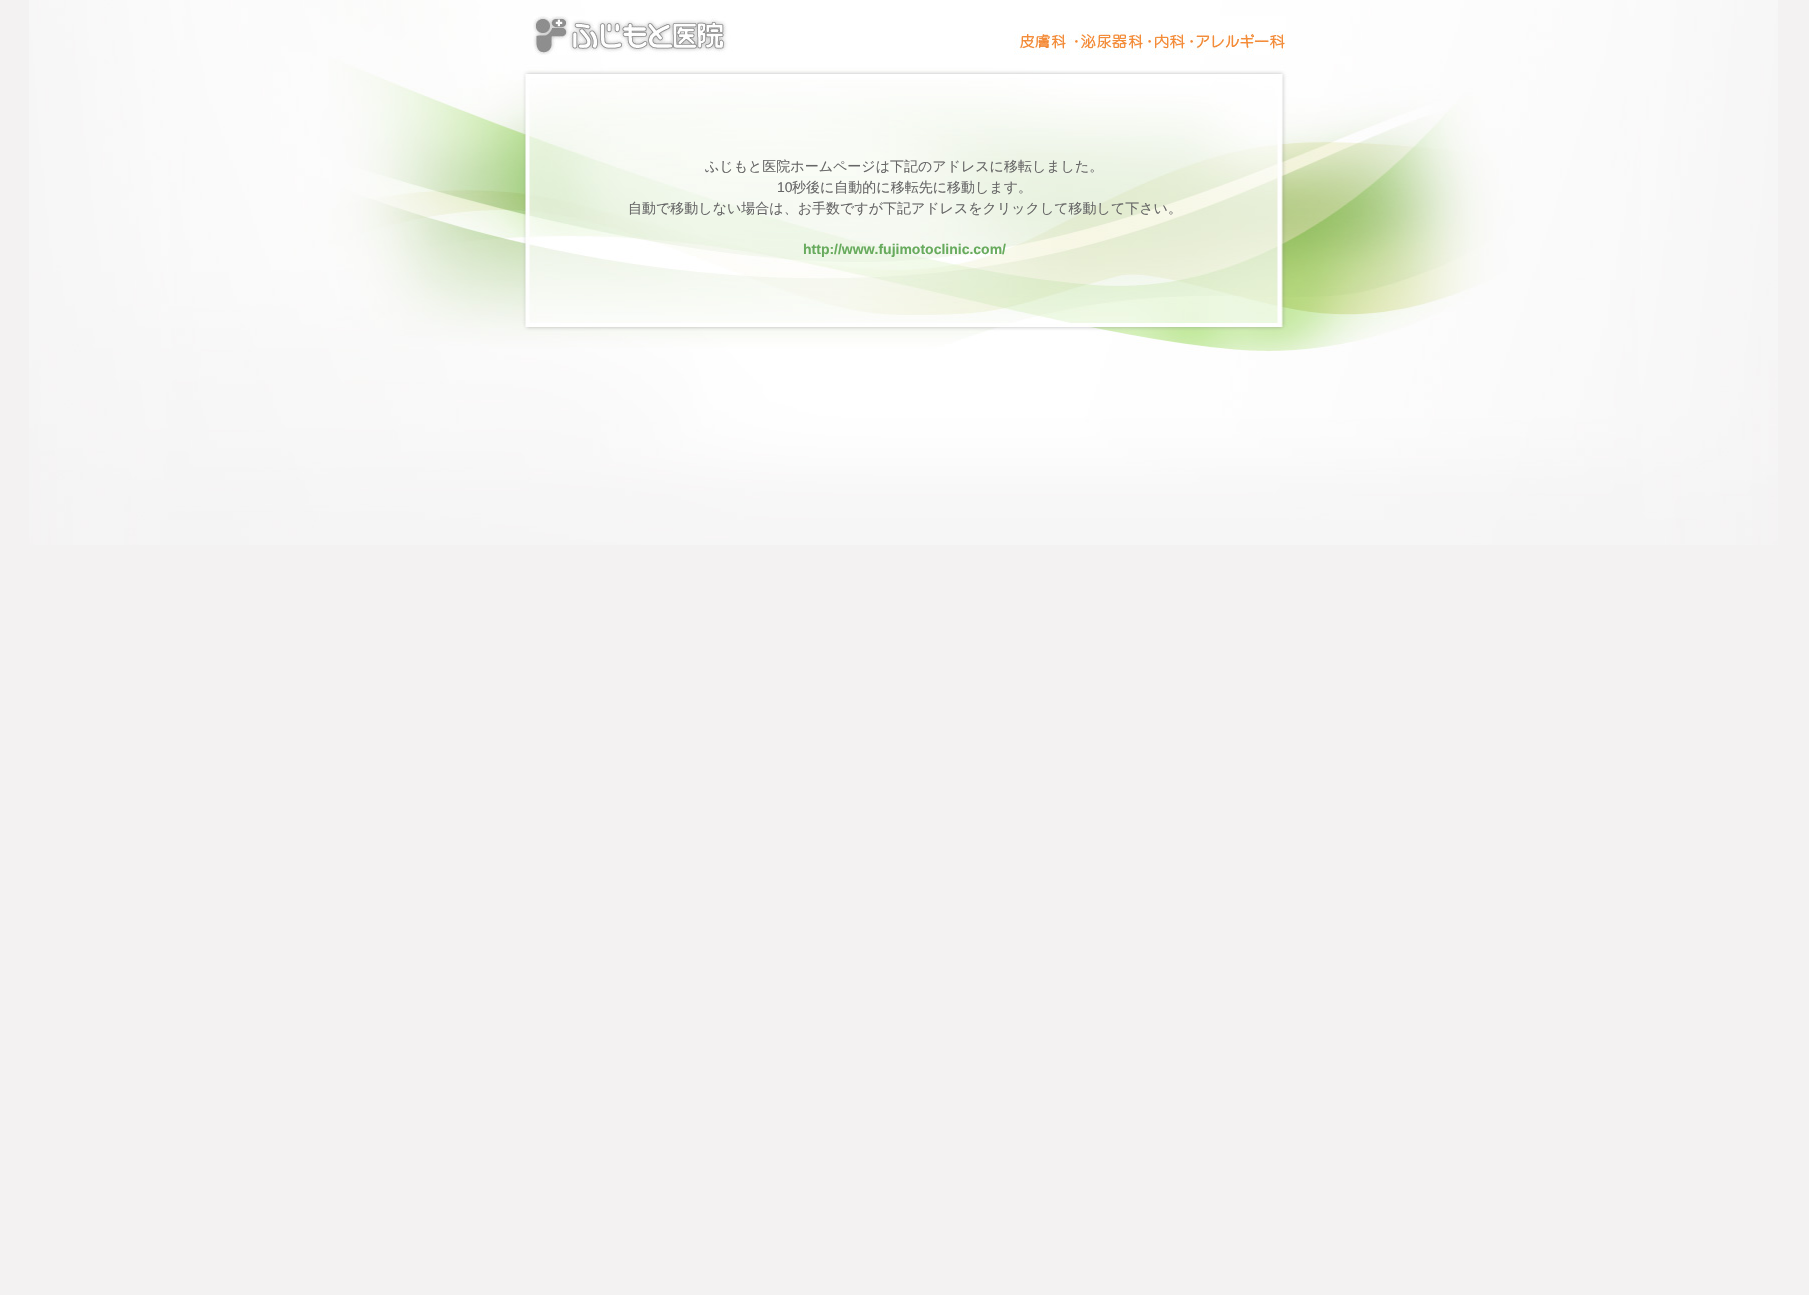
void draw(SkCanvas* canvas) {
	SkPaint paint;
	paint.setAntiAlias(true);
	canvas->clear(0xfff3f2f2);
	canvas->drawImageRect(SkImages::DeferredFromEncodedData(SkData::MakeFromFileName("img1.png")), SkRect::MakeXYWH(29, 0, 1749, 545), SkSamplingOptions());
	canvas->drawImageRect(SkImages::DeferredFromEncodedData(SkData::MakeFromFileName("img2.png")), SkRect::MakeXYWH(533, 16, 753, 39), SkSamplingOptions());
	SkFont f1(fontMgr->matchFamilyStyle("WenQuanYi Zen Hei", SkFontStyle(500, SkFontStyle::kNormal_Width, SkFontStyle::kUpright_Slant)), 14);
	f1.setSubpixel(true);
	paint.setColor(0xff666666);
	canvas->drawString("ふじもと医院ホームページは下記のアドレスに移転しました。", 705, 171, f1, paint);
	SkFont f2(fontMgr->matchFamilyStyle("Liberation Sans", SkFontStyle::Normal()), 14);
	f2.setSubpixel(true);
	canvas->drawString("10", 777, 192, f2, paint);
	canvas->drawString("秒後に自動的に移転先に移動します。", 792, 192, f1, paint);
	canvas->drawString("自動で移動しない場合は、お手数ですが下記アドレスをクリックして移動して下さい。", 628, 213, f1, paint);
	SkFont f3(fontMgr->matchFamilyStyle("Liberation Sans", SkFontStyle::Bold()), 14);
	f3.setSubpixel(true);
	paint.setColor(0xff67ab5d);
	canvas->drawString("http://www.fujimotoclinic.com/", 803, 254, f3, paint);
}
